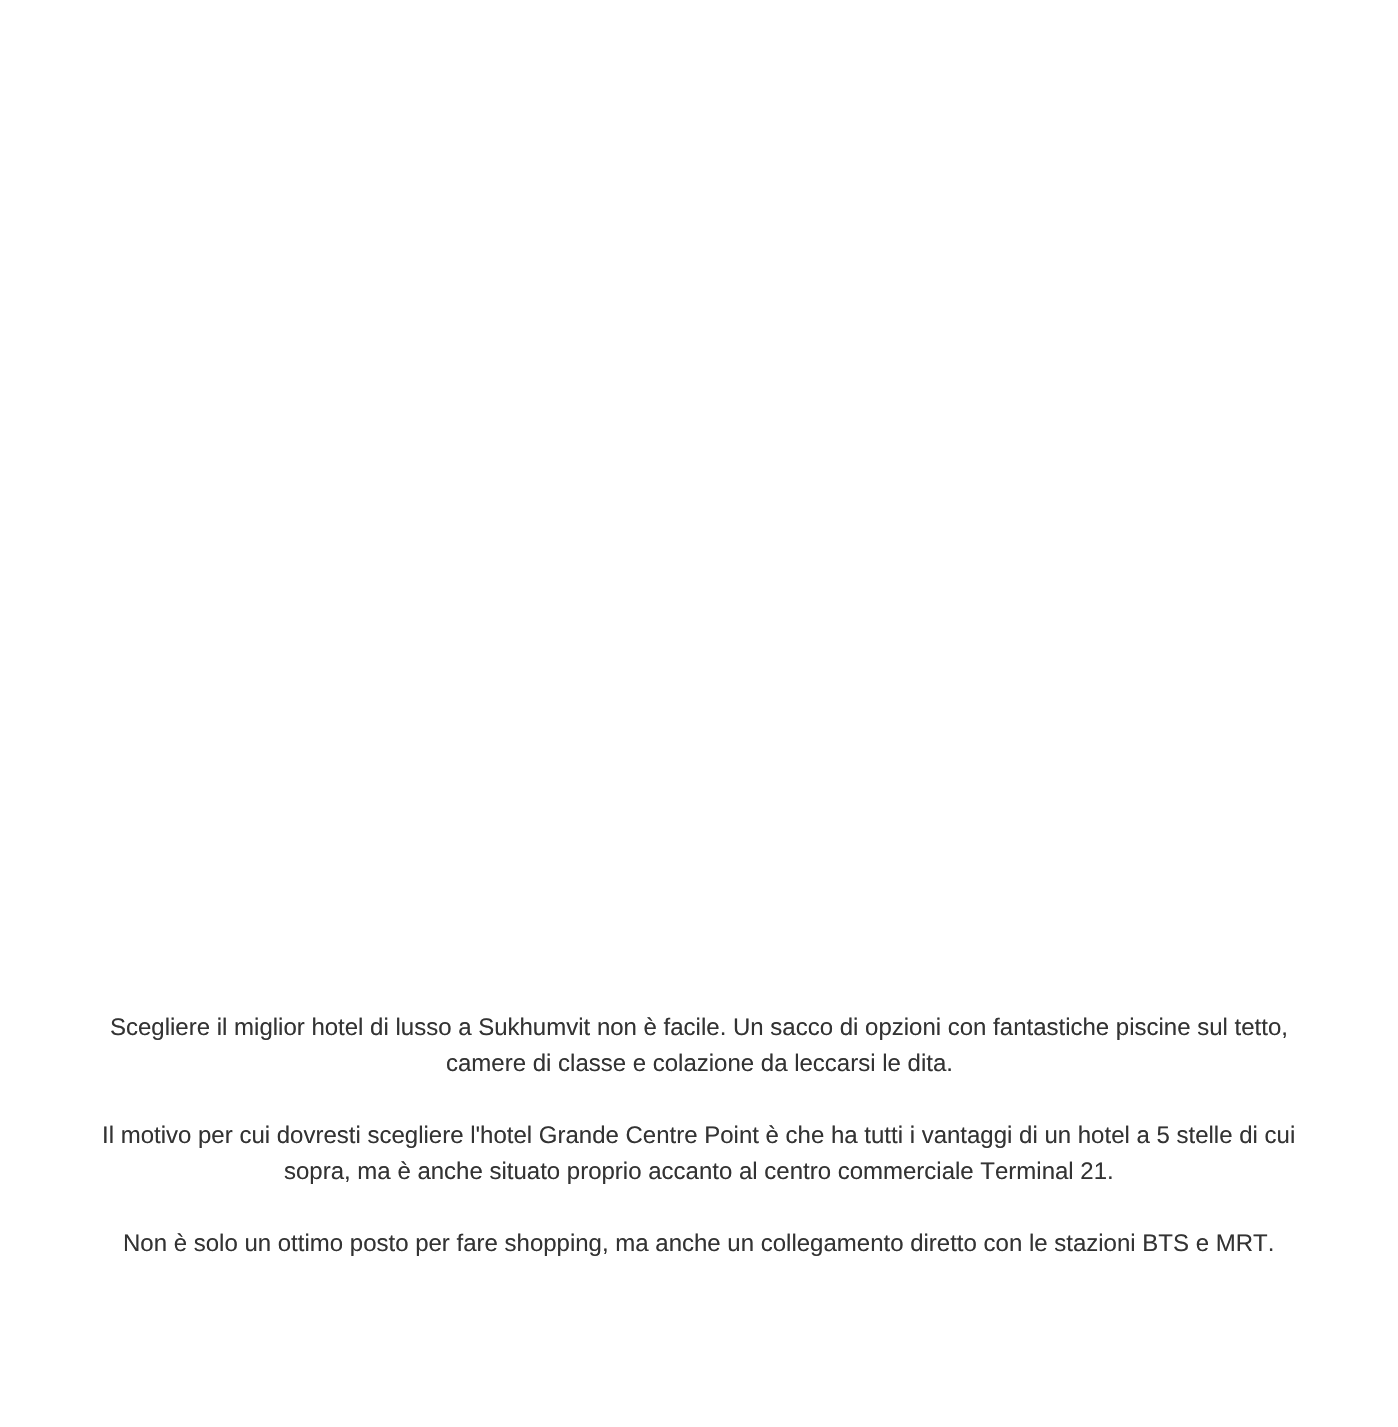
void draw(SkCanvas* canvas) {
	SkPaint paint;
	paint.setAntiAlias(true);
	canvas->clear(0xffffffff);
	SkFont f1(fontMgr->matchFamilyStyle("Liberation Sans", SkFontStyle::Normal()), 24);
	f1.setSubpixel(true);
	paint.setColor(0xff333333);
	canvas->drawString("Scegliere il miglior hotel di lusso a Sukhumvit non è facile. Un sacco di opzioni con fantastiche piscine sul tetto,", 110, 1035, f1, paint);
	canvas->drawString("camere di classe e colazione da leccarsi le dita.", 446, 1071, f1, paint);
	canvas->drawString("Il motivo per cui dovresti scegliere l'hotel Grande Centre Point è che ha tutti i vantaggi di un hotel a 5 stelle di cui", 102, 1143, f1, paint);
	canvas->drawString("sopra, ma è anche situato proprio accanto al centro commerciale Terminal 21.", 284, 1179, f1, paint);
	canvas->drawString("Non è solo un ottimo posto per fare shopping, ma anche un collegamento diretto con le stazioni BTS e MRT.", 123, 1251, f1, paint);
}
